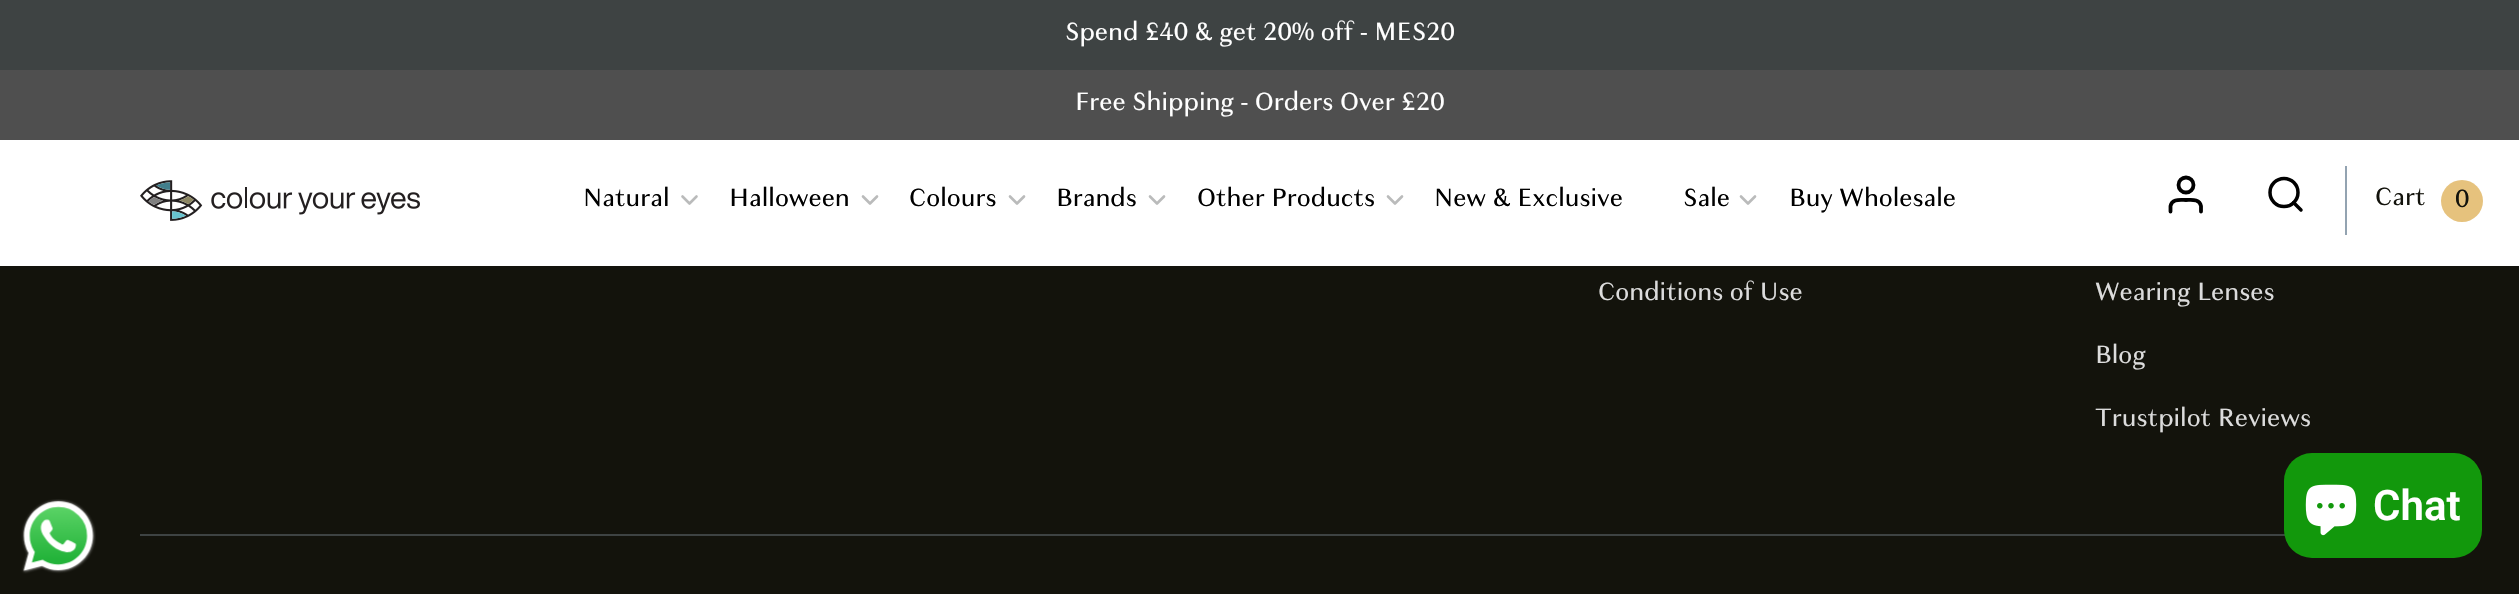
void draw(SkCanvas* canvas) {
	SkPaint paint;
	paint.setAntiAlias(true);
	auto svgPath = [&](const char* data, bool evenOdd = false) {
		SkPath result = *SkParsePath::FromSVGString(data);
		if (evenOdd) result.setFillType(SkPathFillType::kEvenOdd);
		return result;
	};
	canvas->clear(0xff13130c);
	paint.setColor(0xff3e4343);
	canvas->drawRect(SkRect::MakeXYWH(0, 0, 2519, 70), paint);
	SkFont f1(fontMgr->matchFamilyStyle("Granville", SkFontStyle::Normal()), 26.25);
	f1.setSubpixel(true);
	paint.setColor(0xffffffff);
	canvas->drawString("Spend £40 & get 20% off - MES20", 1065, 40, f1, paint);
	paint.setColor(0xff4f4f4f);
	canvas->drawRect(SkRect::MakeXYWH(0, 70, 2519, 70), paint);
	paint.setColor(0xffffffff);
	canvas->drawString("Free Shipping - Orders Over £20", 1075, 110, f1, paint);
	canvas->drawRect(SkRect::MakeXYWH(0, 140, 2519, 126), paint);
	canvas->drawImageRect(SkImages::DeferredFromEncodedData(SkData::MakeFromFileName("img1.png")), SkRect::MakeXYWH(140, 180, 280, 41), SkSamplingOptions());
	paint.setColor(0xff000000);
	canvas->drawString("Natural", 583, 206, f1, paint);
	paint.setStroke(true);
	paint.setStrokeWidth(2.6);
	paint.setStrokeCap(SkPaint::kRound_Cap);
	paint.setStrokeJoin(SkPaint::kRound_Join);
	paint.setColor(0xffbabbbb);
	canvas->drawPath(svgPath("M682.5 196.5L689.5 203.5L696.5 196.5"), paint);
	paint.setStroke(false);
	paint.setColor(0xff000000);
	canvas->drawString("Halloween", 729, 206, f1, paint);
	paint.setStroke(true);
	paint.setColor(0xffbabbbb);
	canvas->drawPath(svgPath("M863 196.5L870 203.5L877 196.5"), paint);
	paint.setStroke(false);
	paint.setColor(0xff000000);
	canvas->drawString("Colours", 909, 206, f1, paint);
	paint.setStroke(true);
	paint.setColor(0xffbabbbb);
	canvas->drawPath(svgPath("M1010 196.5L1017 203.5L1024 196.5"), paint);
	paint.setStroke(false);
	paint.setColor(0xff000000);
	canvas->drawString("Brands", 1056, 206, f1, paint);
	paint.setStroke(true);
	paint.setColor(0xffbabbbb);
	canvas->drawPath(svgPath("M1150 196.5L1157 203.5L1164 196.5"), paint);
	paint.setStroke(false);
	paint.setColor(0xff000000);
	canvas->drawString("Other Products", 1197, 206, f1, paint);
	paint.setStroke(true);
	paint.setColor(0xffbabbbb);
	canvas->drawPath(svgPath("M1388 196.5L1395 203.5L1402 196.5"), paint);
	paint.setStroke(false);
	paint.setColor(0xff000000);
	canvas->drawString("New & Exclusive", 1434, 206, f1, paint);
	canvas->drawString("Sale", 1683, 206, f1, paint);
	paint.setStroke(true);
	paint.setColor(0xffbabbbb);
	canvas->drawPath(svgPath("M1741 196.5L1748 203.5L1755 196.5"), paint);
	paint.setStroke(false);
	paint.setColor(0xff000000);
	canvas->drawString("Buy Wholesale", 1789, 206, f1, paint);
	paint.setStroke(true);
	paint.setStrokeWidth(3.8);
	paint.setStrokeCap(SkPaint::kButt_Cap);
	paint.setStrokeJoin(SkPaint::kMiter_Join);
	canvas->drawCircle(2186, 185, 7.5, paint);
	paint.setStrokeCap(SkPaint::kRound_Cap);
	paint.setStrokeJoin(SkPaint::kRound_Join);
	canvas->drawPath(svgPath("M2201 211.5V206C2199.5 198.5 2191.5 200 2186 200C2180 200 2172 198.5 2170.5 206V211.5"), paint);
	paint.setStroke(false);
	paint.setColor(0xff93a3b1);
	canvas->drawRect(SkRect::MakeXYWH(2345, 166, 2, 69), paint);
	paint.setStroke(true);
	paint.setStrokeWidth(3.5);
	paint.setStrokeCap(SkPaint::kButt_Cap);
	paint.setStrokeJoin(SkPaint::kMiter_Join);
	paint.setColor(0xff000000);
	canvas->drawCircle(2284, 192.5, 14, paint);
	paint.setStrokeCap(SkPaint::kRound_Cap);
	paint.setStrokeJoin(SkPaint::kRound_Join);
	canvas->drawPath(svgPath("M2301 210L2293.5 202.5"), paint);
	paint.setStroke(false);
	paint.setColor(0xff13130c);
	canvas->drawString("Cart", 2375, 205, f1, paint);
	paint.setColor(0xffe6c27d);
	canvas->drawCircle(2462, 201, 21, paint);
	paint.setColor(0xff13130c);
	canvas->drawString("0", 2455, 207, f1, paint);
	paint.setColor(0xffdcdcdc);
	canvas->drawString("Conditions of Use", 1598, 300, f1, paint);
	canvas->drawString("Wearing Lenses", 2095, 300, f1, paint);
	canvas->drawString("Blog", 2095, 363, f1, paint);
	canvas->drawString("Trustpilot Reviews", 2095, 426, f1, paint);
	paint.setColor(0xff3e4343);
	canvas->drawRect(SkRect::MakeXYWH(140, 534, 2145, 2), paint);
	canvas->drawImageRect(SkImages::DeferredFromEncodedData(SkData::MakeFromFileName("img2.png")), SkRect::MakeXYWH(21, 499, 75, 75), SkSamplingOptions());
	paint.setColor(0xff12980c);
	canvas->drawRoundRect(SkRect::MakeXYWH(2284, 453, 198, 105), 28, 28, paint);
	canvas->drawImageRect(SkImages::DeferredFromEncodedData(SkData::MakeFromFileName("img3.png")), SkRect::MakeXYWH(2305, 484, 52, 52), SkSamplingOptions());
	SkFont f2(fontMgr->matchFamilyStyle("Roboto", SkFontStyle(600, SkFontStyle::kNormal_Width, SkFontStyle::kUpright_Slant)), 42);
	f2.setSubpixel(true);
	paint.setColor(0xffffffff);
	canvas->drawString("Chat", 2373, 520, f2, paint);
}
